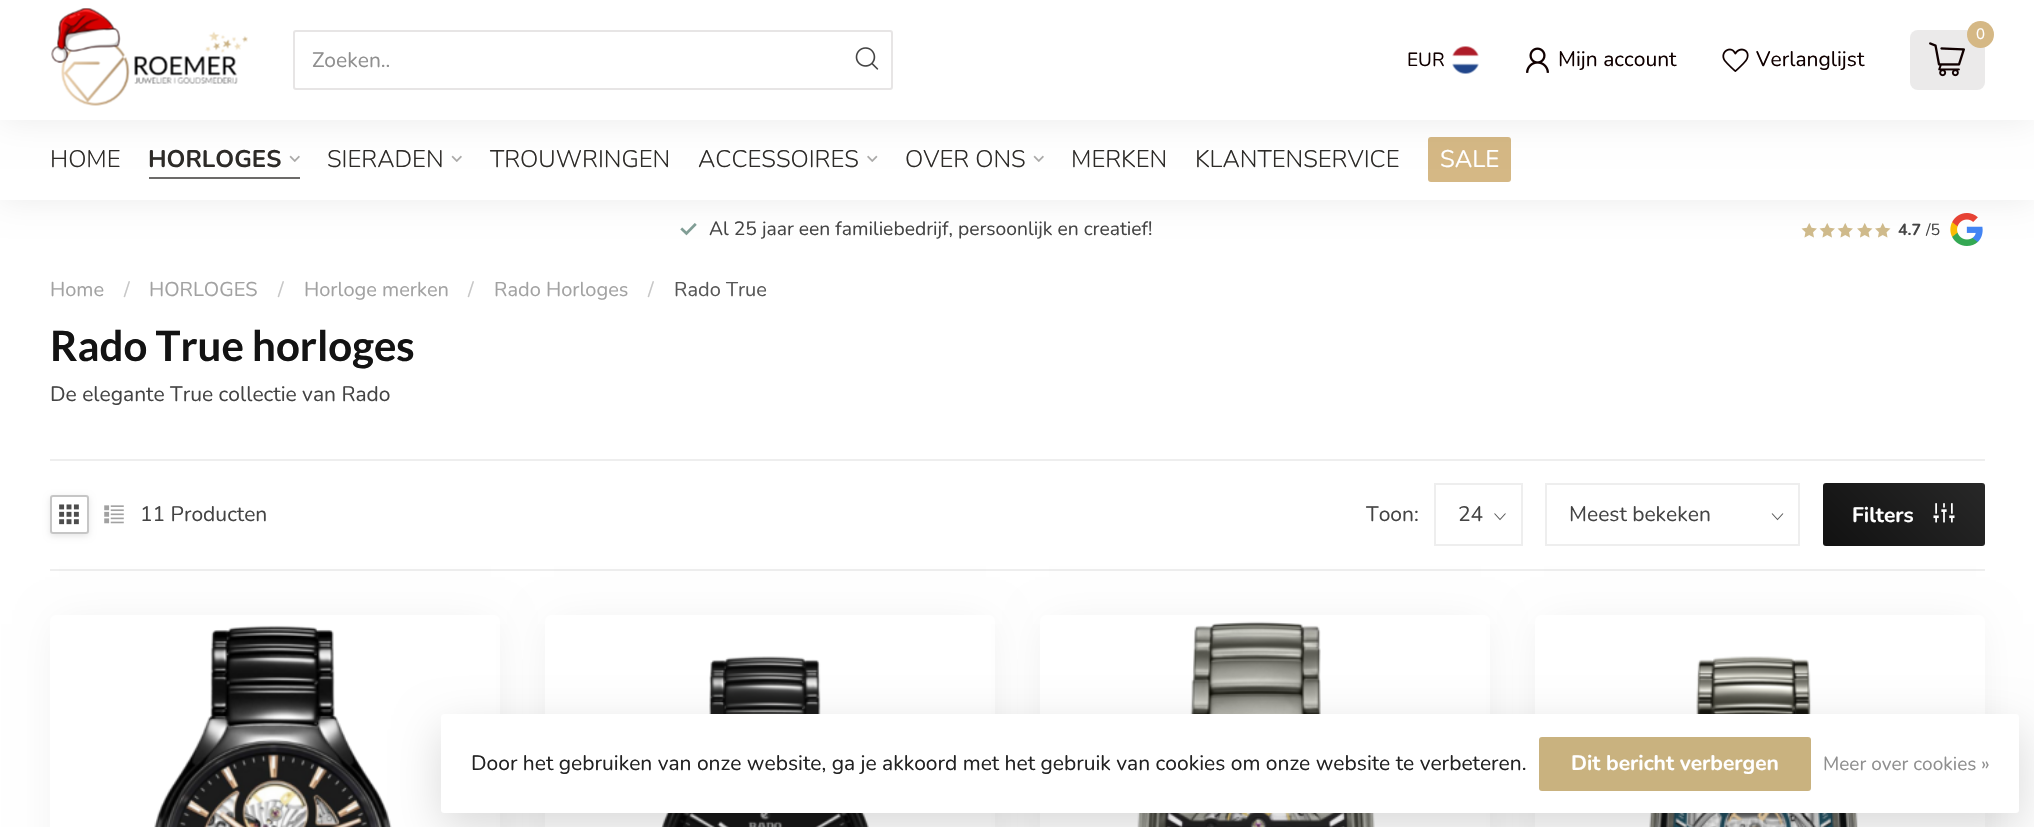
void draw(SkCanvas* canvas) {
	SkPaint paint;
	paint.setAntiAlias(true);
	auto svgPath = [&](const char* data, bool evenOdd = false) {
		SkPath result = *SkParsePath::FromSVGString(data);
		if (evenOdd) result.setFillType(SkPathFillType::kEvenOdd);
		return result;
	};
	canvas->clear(0xffffffff);
	canvas->drawImageRect(SkImages::DeferredFromEncodedData(SkData::MakeFromFileName("img9.png")), SkRect::MakeXYWH(680, 223, 17, 13), SkSamplingOptions());
	canvas->drawImageRect(SkImages::DeferredFromEncodedData(SkData::MakeFromFileName("img10.png")), SkRect::MakeXYWH(1801, 223, 16, 15), SkSamplingOptions());
	canvas->drawImageRect(SkImages::DeferredFromEncodedData(SkData::MakeFromFileName("img10.png")), SkRect::MakeXYWH(1819, 223, 16, 15), SkSamplingOptions());
	canvas->drawImageRect(SkImages::DeferredFromEncodedData(SkData::MakeFromFileName("img10.png")), SkRect::MakeXYWH(1837, 223, 16, 15), SkSamplingOptions());
	canvas->drawImageRect(SkImages::DeferredFromEncodedData(SkData::MakeFromFileName("img11.png")), SkRect::MakeXYWH(1857, 223, 16, 15), SkSamplingOptions());
	canvas->drawImageRect(SkImages::DeferredFromEncodedData(SkData::MakeFromFileName("img11.png")), SkRect::MakeXYWH(1875, 223, 16, 15), SkSamplingOptions());
	canvas->drawImageRect(SkImages::DeferredFromEncodedData(SkData::MakeFromFileName("img12.png")), SkRect::MakeXYWH(1950, 213, 33, 33), SkSamplingOptions());
	paint.setColor(0x14000000);
	paint.setMaskFilter(SkMaskFilter::MakeBlur(kNormal_SkBlurStyle, 16.5));
	canvas->drawRect(SkRect::MakeXYWH(0, 120, 2034, 80), paint);
	paint.setMaskFilter(nullptr);
	paint.setColor(0xffffffff);
	canvas->drawRect(SkRect::MakeXYWH(0, 120, 2034, 80), paint);
	canvas->drawImageRect(SkImages::DeferredFromEncodedData(SkData::MakeFromFileName("img7.png")), SkRect::MakeXYWH(289, 155, 11, 7), SkSamplingOptions());
	canvas->drawImageRect(SkImages::DeferredFromEncodedData(SkData::MakeFromFileName("img7.png")), SkRect::MakeXYWH(451, 155, 11, 7), SkSamplingOptions());
	canvas->drawImageRect(SkImages::DeferredFromEncodedData(SkData::MakeFromFileName("img8.png")), SkRect::MakeXYWH(867, 155, 11, 7), SkSamplingOptions());
	canvas->drawImageRect(SkImages::DeferredFromEncodedData(SkData::MakeFromFileName("img7.png")), SkRect::MakeXYWH(1033, 155, 11, 7), SkSamplingOptions());
	paint.setColor(0xffd5b885);
	canvas->drawRoundRect(SkRect::MakeXYWH(1428, 137, 83, 45), 3, 3, paint);
	paint.setColor(0x14000000);
	paint.setMaskFilter(SkMaskFilter::MakeBlur(kNormal_SkBlurStyle, 16.5));
	canvas->drawRect(SkRect::MakeXYWH(0, 0, 2034, 120), paint);
	paint.setMaskFilter(nullptr);
	paint.setColor(0xffffffff);
	canvas->drawRect(SkRect::MakeXYWH(0, 0, 2034, 120), paint);
	canvas->drawImageRect(SkImages::DeferredFromEncodedData(SkData::MakeFromFileName("img1.png")), SkRect::MakeXYWH(51, 8, 197, 98), SkSamplingOptions());
	paint.setStroke(true);
	paint.setStrokeWidth(2);
	paint.setColor(0xffe7e5e5);
	canvas->drawRoundRect(SkRect::MakeXYWH(294, 31, 598, 58), 2, 2, paint);
	SkFont f1(fontMgr->matchFamilyStyle("Nunito", SkFontStyle::Normal()), 21);
	f1.setSubpixel(true);
	paint.setStroke(false);
	paint.setColor(0xff8f8f8f);
	canvas->drawString("Zoeken..", 312, 67, f1, paint);
	canvas->drawImageRect(SkImages::DeferredFromEncodedData(SkData::MakeFromFileName("img2.png")), SkRect::MakeXYWH(855, 47, 24, 23), SkSamplingOptions());
	paint.setColor(0xffebeaea);
	canvas->drawRoundRect(SkRect::MakeXYWH(1910, 30, 75, 60), 8, 8, paint);
	paint.setColor(0xffd5b885);
	canvas->drawCircle(1980.5, 34.5, 13.5, paint);
	SkFont f2(fontMgr->matchFamilyStyle("Nunito", SkFontStyle::Normal()), 15);
	f2.setSubpixel(true);
	paint.setColor(0xffffffff);
	canvas->drawString("0", 1976, 39, f2, paint);
	canvas->drawImageRect(SkImages::DeferredFromEncodedData(SkData::MakeFromFileName("img3.png")), SkRect::MakeXYWH(1929, 42, 36, 35), SkSamplingOptions());
	SkFont f3(fontMgr->matchFamilyStyle("Nunito", SkFontStyle::Normal()), 19);
	f3.setSubpixel(true);
	paint.setColor(0xff100000);
	canvas->drawString("EUR", 1407, 66, f3, paint);
	canvas->drawImageRect(SkImages::DeferredFromEncodedData(SkData::MakeFromFileName("img4.png")), SkRect::MakeXYWH(1452, 46, 27, 28), SkSamplingOptions());
	canvas->drawImageRect(SkImages::DeferredFromEncodedData(SkData::MakeFromFileName("img5.png")), SkRect::MakeXYWH(1526, 47, 23, 26), SkSamplingOptions());
	canvas->drawString("Mijn account", 1558, 66, f1, paint);
	canvas->drawImageRect(SkImages::DeferredFromEncodedData(SkData::MakeFromFileName("img6.png")), SkRect::MakeXYWH(1722, 48, 27, 24), SkSamplingOptions());
	canvas->drawString("Verlanglijst", 1756, 66, f1, paint);
	SkFont f4(fontMgr->matchFamilyStyle("Nunito", SkFontStyle(300, SkFontStyle::kNormal_Width, SkFontStyle::kUpright_Slant)), 24);
	f4.setSubpixel(true);
	paint.setColor(0xff2d2b28);
	canvas->drawString("HOME", 50, 167, f4, paint);
	SkFont f5(fontMgr->matchFamilyStyle("Nunito", SkFontStyle::Bold()), 24);
	f5.setSubpixel(true);
	canvas->drawString("HORLOGES", 148, 167, f5, paint);
	paint.setColor(0xff6c6b69);
	canvas->drawRect(SkRect::MakeXYWH(149, 177, 151, 2), paint);
	paint.setColor(0xff2d2b28);
	canvas->drawString("SIERADEN", 327, 167, f4, paint);
	canvas->drawString("TROUWRINGEN", 490, 167, f4, paint);
	canvas->drawString("ACCESSOIRES", 698, 167, f4, paint);
	canvas->drawString("OVER ONS", 905, 167, f4, paint);
	canvas->drawString("MERKEN", 1071, 167, f4, paint);
	canvas->drawString("KLANTENSERVICE", 1195, 167, f4, paint);
	SkFont f6(fontMgr->matchFamilyStyle("Nunito", SkFontStyle::Normal()), 24);
	f6.setSubpixel(true);
	paint.setColor(0xffffffff);
	canvas->drawString("SALE", 1440, 167, f6, paint);
	SkFont f7(fontMgr->matchFamilyStyle("Nunito", SkFontStyle::Normal()), 19.3);
	f7.setSubpixel(true);
	paint.setColor(0xff444444);
	canvas->drawString("Al 25 jaar een familiebedrijf, persoonlijk en creatief!", 709, 235, f7, paint);
	SkFont f8(fontMgr->matchFamilyStyle("Nunito", SkFontStyle::Bold()), 16);
	f8.setSubpixel(true);
	canvas->drawString("4.7", 1898, 235, f8, paint);
	SkFont f9(fontMgr->matchFamilyStyle("Nunito", SkFontStyle::Normal()), 16);
	f9.setSubpixel(true);
	canvas->drawString("/5", 1926, 235, f9, paint);
	SkFont f10(fontMgr->matchFamilyStyle("Nunito", SkFontStyle::Normal()), 20);
	f10.setSubpixel(true);
	paint.setColor(0xffa2a2a2);
	canvas->drawString("Home", 50, 296, f10, paint);
	paint.setColor(0xffc7c7c7);
	canvas->drawString("/", 124, 296, f10, paint);
	paint.setColor(0xffa2a2a2);
	canvas->drawString("HORLOGES", 149, 296, f10, paint);
	paint.setColor(0xffc7c7c7);
	canvas->drawString("/", 278, 296, f10, paint);
	paint.setColor(0xffa2a2a2);
	canvas->drawString("Horloge merken", 304, 296, f10, paint);
	paint.setColor(0xffc7c7c7);
	canvas->drawString("/", 468, 296, f10, paint);
	paint.setColor(0xffa2a2a2);
	canvas->drawString("Rado Horloges", 494, 296, f10, paint);
	paint.setColor(0xffc7c7c7);
	canvas->drawString("/", 648, 296, f10, paint);
	paint.setColor(0xff575757);
	canvas->drawString("Rado True", 674, 296, f10, paint);
	SkFont f11(fontMgr->matchFamilyStyle("Lato", SkFontStyle::Bold()), 42);
	f11.setSubpixel(true);
	paint.setColor(0xff131313);
	canvas->drawString("Rado True horloges", 50, 361, f11, paint);
	paint.setColor(0xff444444);
	canvas->drawString("De elegante True collectie van Rado", 50, 401, f1, paint);
	paint.setColor(0xffeeeeee);
	canvas->drawRect(SkRect::MakeXYWH(50, 459, 1935, 2), paint);
	canvas->drawRect(SkRect::MakeXYWH(50, 569, 1935, 2), paint);
	canvas->save();
	canvas->clipPath(svgPath("M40 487H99V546H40ZM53 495H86C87.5 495 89 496.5 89 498V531C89 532.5 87.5 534 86 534H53C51.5 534 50 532.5 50 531V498C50 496.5 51.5 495 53 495Z", true), true);
	paint.setColor(0x1a000000);
	paint.setMaskFilter(SkMaskFilter::MakeBlur(kNormal_SkBlurStyle, 3));
	canvas->drawRoundRect(SkRect::MakeXYWH(50, 497, 39, 39), 3, 3, paint);
	paint.setMaskFilter(nullptr);
	canvas->restore();
	paint.setStroke(true);
	paint.setColor(0xffc6c6c6);
	canvas->drawRoundRect(SkRect::MakeXYWH(51, 496, 37, 37), 2, 2, paint);
	canvas->drawImageRect(SkImages::DeferredFromEncodedData(SkData::MakeFromFileName("img13.png")), SkRect::MakeXYWH(59, 504, 20, 21), SkSamplingOptions());
	canvas->drawImageRect(SkImages::DeferredFromEncodedData(SkData::MakeFromFileName("img14.png")), SkRect::MakeXYWH(104, 505, 20, 19), SkSamplingOptions());
	paint.setStroke(false);
	paint.setColor(0xff444444);
	canvas->drawString("11 Producten", 140, 521, f1, paint);
	canvas->drawString("Toon:", 1366, 521, f1, paint);
	paint.setStroke(true);
	paint.setStrokeWidth(1.1);
	paint.setColor(0xff595959);
	canvas->drawPath(svgPath("M1505.5 513.5L1500 519.5L1494.5 513.5"), paint);
	paint.setStrokeWidth(2);
	paint.setColor(0xffeeeeee);
	canvas->drawRect(SkRect::MakeXYWH(1435, 484, 87, 61), paint);
	paint.setStroke(false);
	paint.setColor(0xff444444);
	canvas->drawString("24", 1458, 521, f1, paint);
	paint.setStroke(true);
	paint.setStrokeWidth(1.1);
	paint.setColor(0xff595959);
	canvas->drawPath(svgPath("M1783 513.5L1777.5 519.5L1772 513.5"), paint);
	paint.setStrokeWidth(2);
	paint.setColor(0xffeeeeee);
	canvas->drawRect(SkRect::MakeXYWH(1546, 484, 253, 61), paint);
	paint.setStroke(false);
	paint.setColor(0xff444444);
	canvas->drawString("Meest bekeken", 1569, 521, f1, paint);
	{
		const SkColor colors[] = {0xff111111, 0xff282828};
		const float stops[] = {0, 1};
		const SkPoint ends[] = {{1847, 571}, {1960, 458}};
		paint.setShader(SkGradientShader::MakeLinear(ends, colors, stops, 2, SkTileMode::kClamp));
		paint.setAlpha(255);
	}
	canvas->drawRoundRect(SkRect::MakeXYWH(1823, 483, 162, 63), 3, 3, paint);
	SkFont f12(fontMgr->matchFamilyStyle("Nunito", SkFontStyle::Bold()), 21);
	f12.setSubpixel(true);
	paint.setShader(nullptr);
	paint.setColor(0xffffffff);
	canvas->drawString("Filters", 1852, 522, f12, paint);
	canvas->drawImageRect(SkImages::DeferredFromEncodedData(SkData::MakeFromFileName("img15.png")), SkRect::MakeXYWH(1933, 503, 22, 20), SkSamplingOptions());
	paint.setColor(0x12000000);
	paint.setMaskFilter(SkMaskFilter::MakeBlur(kNormal_SkBlurStyle, 19.5));
	canvas->drawRect(SkRect::MakeXYWH(59, 624, 432, 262), paint);
	paint.setMaskFilter(nullptr);
	paint.setColor(0xffffffff);
	canvas->drawPath(svgPath("M56 615H494C497.5 615 500 617.5 500 621V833H50V621C50 617.5 52.5 615 56 615Z"), paint);
	canvas->drawImageRect(SkImages::DeferredFromEncodedData(SkData::MakeFromFileName("img16.png")), SkRect::MakeXYWH(154, 625, 238, 202), SkSamplingOptions());
	paint.setColor(0x12000000);
	paint.setMaskFilter(SkMaskFilter::MakeBlur(kNormal_SkBlurStyle, 19.5));
	canvas->drawRect(SkRect::MakeXYWH(554, 624, 432, 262), paint);
	paint.setMaskFilter(nullptr);
	paint.setColor(0xffffffff);
	canvas->drawPath(svgPath("M551 615H989C992.5 615 995 617.5 995 621V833H545V621C545 617.5 547.5 615 551 615Z"), paint);
	canvas->drawImageRect(SkImages::DeferredFromEncodedData(SkData::MakeFromFileName("img17.png")), SkRect::MakeXYWH(661, 656, 208, 171), SkSamplingOptions());
	paint.setColor(0x12000000);
	paint.setMaskFilter(SkMaskFilter::MakeBlur(kNormal_SkBlurStyle, 19.5));
	canvas->drawRect(SkRect::MakeXYWH(1049, 624, 432, 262), paint);
	paint.setMaskFilter(nullptr);
	paint.setColor(0xffffffff);
	canvas->drawPath(svgPath("M1046 615H1484C1487.5 615 1490 617.5 1490 621V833H1040V621C1040 617.5 1042.5 615 1046 615Z"), paint);
	canvas->drawImageRect(SkImages::DeferredFromEncodedData(SkData::MakeFromFileName("img18.png")), SkRect::MakeXYWH(1137, 621, 238, 206), SkSamplingOptions());
	paint.setColor(0x12000000);
	paint.setMaskFilter(SkMaskFilter::MakeBlur(kNormal_SkBlurStyle, 19.5));
	canvas->drawRect(SkRect::MakeXYWH(1544, 624, 432, 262), paint);
	paint.setMaskFilter(nullptr);
	paint.setColor(0xffffffff);
	canvas->drawPath(svgPath("M1541 615H1979C1982.5 615 1985 617.5 1985 621V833H1535V621C1535 617.5 1537.5 615 1541 615Z"), paint);
	canvas->drawImageRect(SkImages::DeferredFromEncodedData(SkData::MakeFromFileName("img19.png")), SkRect::MakeXYWH(1649, 656, 209, 171), SkSamplingOptions());
	paint.setColor(0x26000000);
	paint.setMaskFilter(SkMaskFilter::MakeBlur(kNormal_SkBlurStyle, 22.5));
	canvas->drawRoundRect(SkRect::MakeXYWH(441, 729, 1578, 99), 3, 3, paint);
	paint.setMaskFilter(nullptr);
	paint.setColor(0xffffffff);
	canvas->drawRoundRect(SkRect::MakeXYWH(441, 714, 1578, 99), 3, 3, paint);
	paint.setColor(0xff222222);
	canvas->drawString("Door het gebruiken van onze website, ga je akkoord met het gebruik van cookies om onze website te verbeteren.", 471, 770, f1, paint);
	paint.setColor(0xffc9b27f);
	canvas->drawRoundRect(SkRect::MakeXYWH(1539, 737, 272, 54), 3, 3, paint);
	paint.setColor(0xffffffff);
	canvas->drawString("Dit bericht verbergen", 1571, 770, f12, paint);
	paint.setColor(0xff8f8f8f);
	canvas->drawString("Meer over cookies »", 1823, 770, f3, paint);
}
